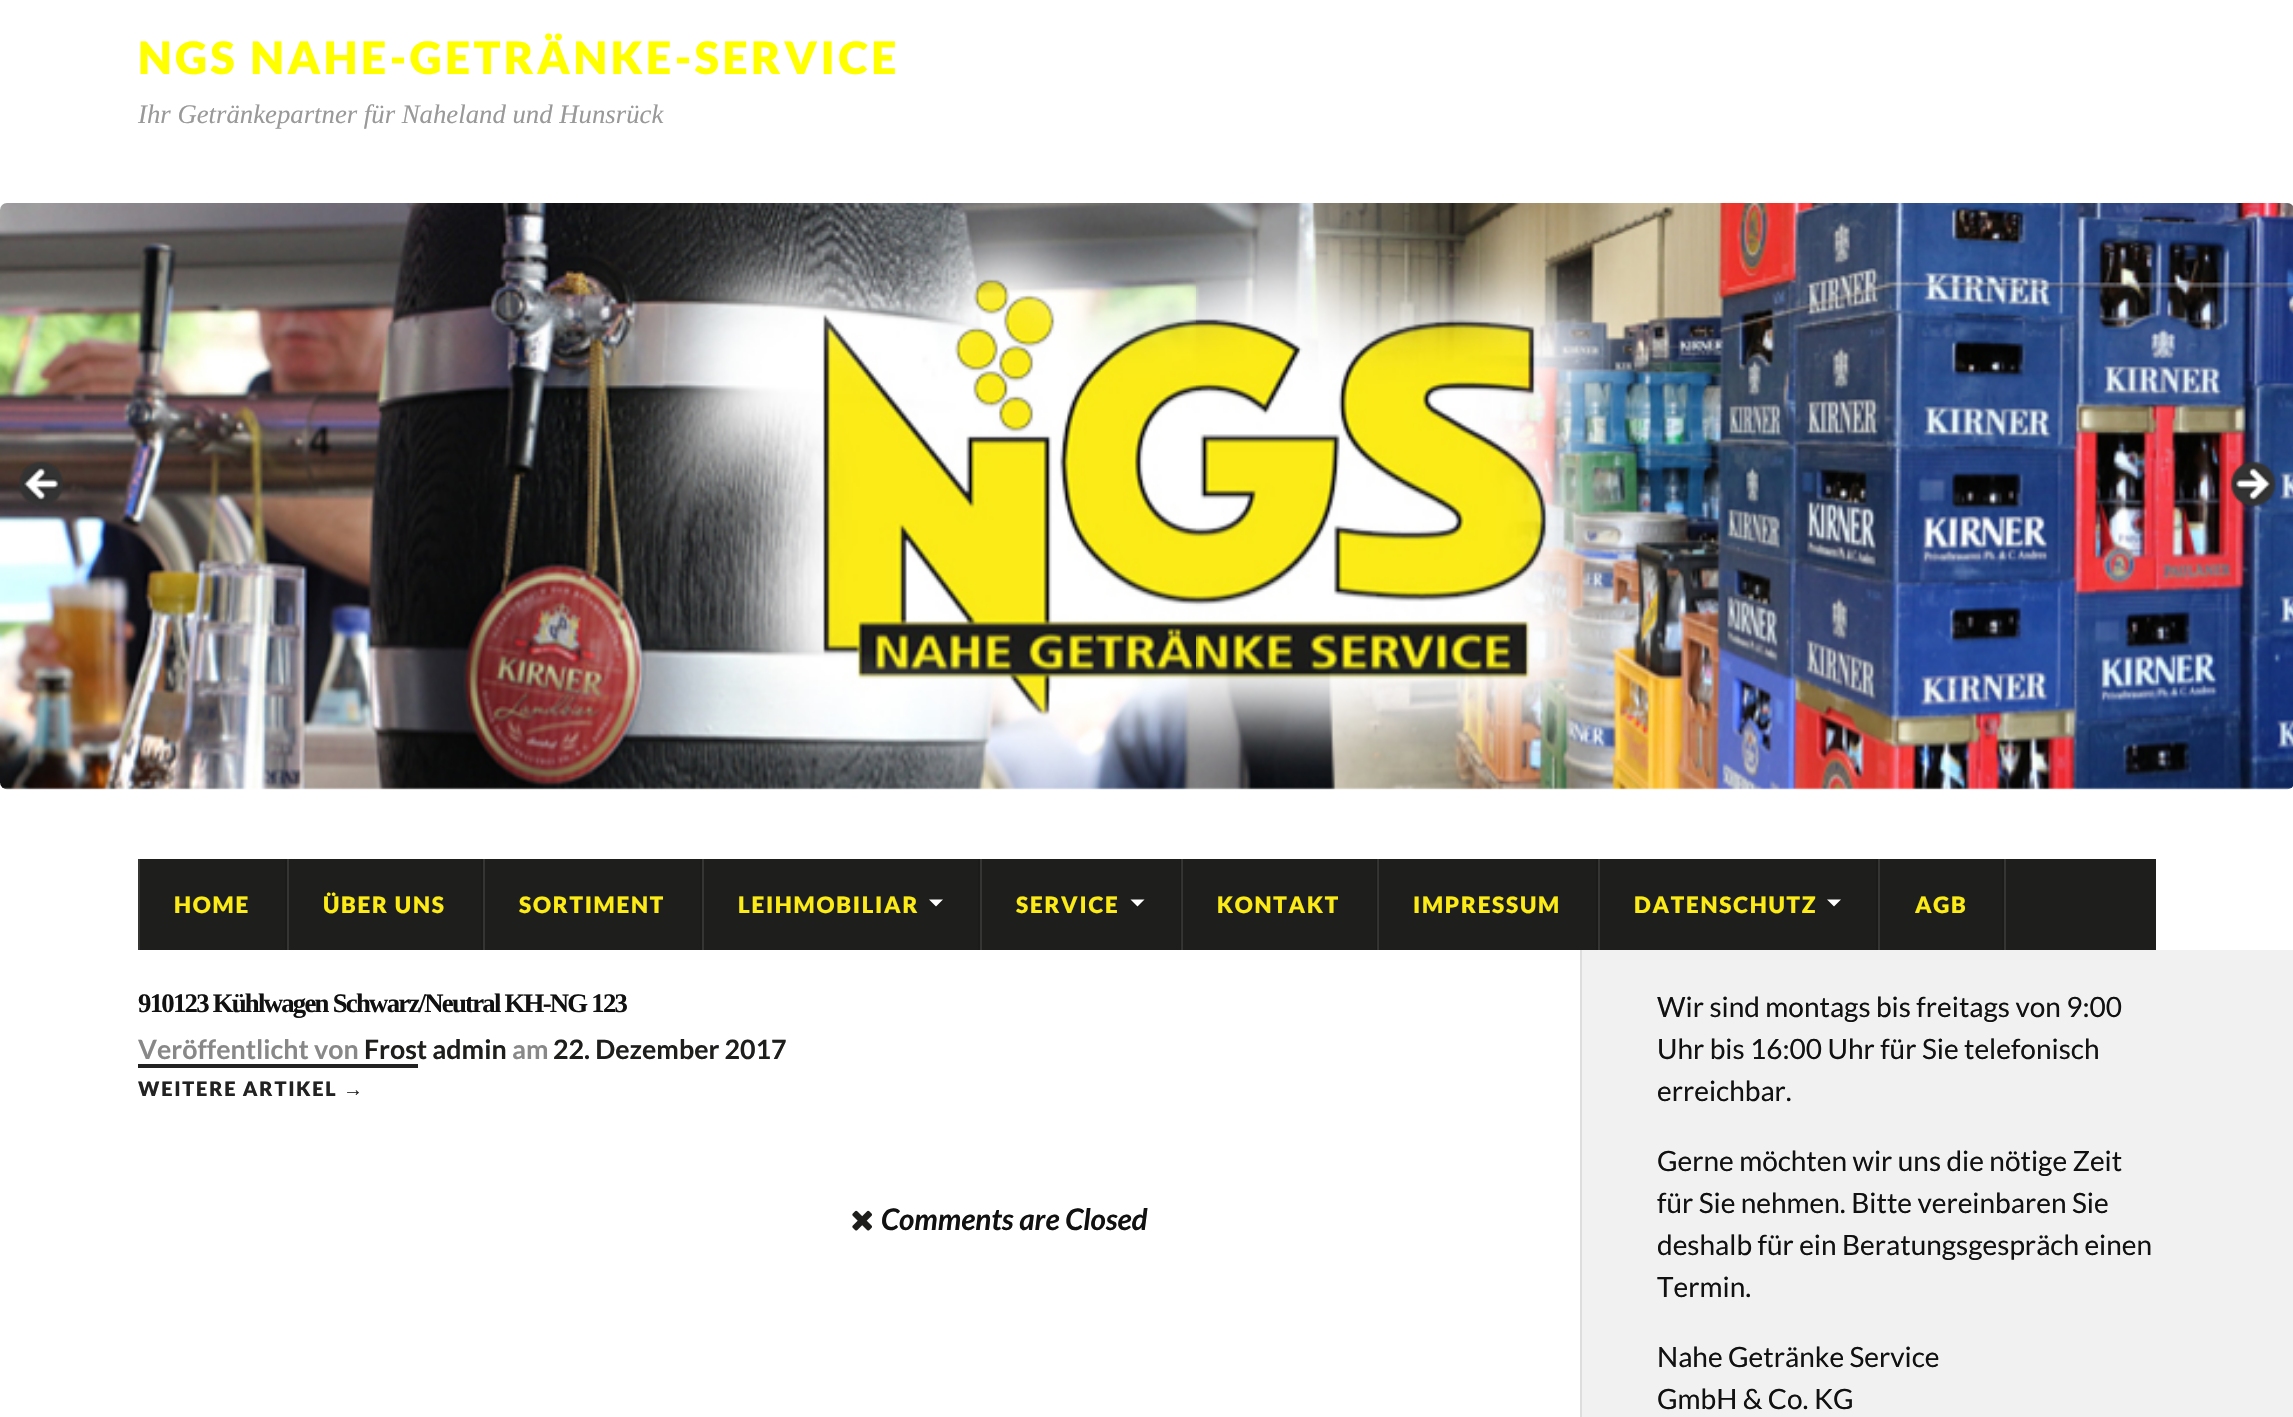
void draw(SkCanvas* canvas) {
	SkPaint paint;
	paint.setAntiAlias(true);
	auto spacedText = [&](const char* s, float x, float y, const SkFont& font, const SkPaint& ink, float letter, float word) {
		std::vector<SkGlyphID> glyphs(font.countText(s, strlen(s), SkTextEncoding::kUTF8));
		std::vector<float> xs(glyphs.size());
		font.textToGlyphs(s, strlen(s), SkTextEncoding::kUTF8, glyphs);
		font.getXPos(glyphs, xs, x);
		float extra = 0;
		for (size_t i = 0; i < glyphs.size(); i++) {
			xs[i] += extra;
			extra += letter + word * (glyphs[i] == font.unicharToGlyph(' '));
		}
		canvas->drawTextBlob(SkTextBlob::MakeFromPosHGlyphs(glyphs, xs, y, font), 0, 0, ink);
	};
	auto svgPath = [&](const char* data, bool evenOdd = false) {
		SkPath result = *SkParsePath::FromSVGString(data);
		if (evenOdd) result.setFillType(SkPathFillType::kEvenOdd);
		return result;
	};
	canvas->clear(0xfff1f1f1);
	paint.setColor(0xffffffff);
	canvas->drawRect(SkRect::MakeXYWH(0, 0, 2293, 950), paint);
	SkFont f1(fontMgr->matchFamilyStyle("Lato", SkFontStyle(900, SkFontStyle::kNormal_Width, SkFontStyle::kUpright_Slant)), 44.6);
	f1.setSubpixel(true);
	paint.setColor(0xffffff00);
	spacedText("NGS NAHE-GETRÄNKE-SERVICE", 138, 74, f1, paint, 3.5, 0);
	SkFont f2(fontMgr->matchFamilyStyle("Liberation Serif", SkFontStyle::Italic()), 26.75);
	f2.setSubpixel(true);
	paint.setColor(0xff999999);
	canvas->drawString("Ihr Getränkepartner für Naheland und Hunsrück", 138, 123, f2, paint);
	canvas->drawImageRect(SkImages::DeferredFromEncodedData(SkData::MakeFromFileName("img1.png")), SkRect::MakeXYWH(0, 203, 2293, 587), SkSamplingOptions());
	canvas->drawImageRect(SkImages::DeferredFromEncodedData(SkData::MakeFromFileName("img2.png")), SkRect::MakeXYWH(19, 461, 44, 44), SkSamplingOptions());
	canvas->drawImageRect(SkImages::DeferredFromEncodedData(SkData::MakeFromFileName("img3.png")), SkRect::MakeXYWH(2230, 461, 46, 46), SkSamplingOptions());
	paint.setColor(0xff1e1f1c);
	canvas->drawRect(SkRect::MakeXYWH(140, 859, 2016, 91), paint);
	paint.setColor(0xff353533);
	canvas->drawRect(SkRect::MakeXYWH(1378, 859, 1, 91), paint);
	canvas->drawRect(SkRect::MakeXYWH(1182, 859, 1, 91), paint);
	paint.setColor(0xff1b1c19);
	canvas->drawRect(SkRect::MakeXYWH(285, 859, 2, 91), paint);
	paint.setColor(0xff353533);
	canvas->drawRect(SkRect::MakeXYWH(138, 859, 2, 91), paint);
	SkFont f3(fontMgr->matchFamilyStyle("Lato", SkFontStyle(900, SkFontStyle::kNormal_Width, SkFontStyle::kUpright_Slant)), 22.5);
	f3.setSubpixel(true);
	paint.setColor(0xfffceb17);
	spacedText("HOME", 174, 913, f3, paint, 1.75, 0);
	paint.setColor(0xff1b1c19);
	canvas->drawRect(SkRect::MakeXYWH(481, 859, 2, 91), paint);
	paint.setColor(0xff353533);
	canvas->drawRect(SkRect::MakeXYWH(287, 859, 2, 91), paint);
	paint.setColor(0xfffceb17);
	spacedText("ÜBER UNS", 323, 913, f3, paint, 1.75, 0);
	paint.setColor(0xff1b1c19);
	canvas->drawRect(SkRect::MakeXYWH(700, 859, 2, 91), paint);
	paint.setColor(0xff353533);
	canvas->drawRect(SkRect::MakeXYWH(483, 859, 2, 91), paint);
	paint.setColor(0xfffceb17);
	spacedText("SORTIMENT", 519, 913, f3, paint, 1.75, 0);
	paint.setColor(0xff1b1c19);
	canvas->drawRect(SkRect::MakeXYWH(978, 859, 2, 91), paint);
	paint.setColor(0xff353533);
	canvas->drawRect(SkRect::MakeXYWH(702, 859, 2, 91), paint);
	paint.setColor(0xfffceb17);
	spacedText("LEIHMOBILIAR", 738, 913, f3, paint, 1.75, 0);
	paint.setColor(0xff171715);
	canvas->drawPath(svgPath("M929 901H943L936 908Z"), paint);
	paint.setColor(0xffffffff);
	canvas->drawPath(svgPath("M929 899.5H943L936 906.5Z"), paint);
	paint.setColor(0xff1b1c19);
	canvas->drawRect(SkRect::MakeXYWH(1180, 859, 1, 91), paint);
	paint.setColor(0xff323330);
	canvas->drawRect(SkRect::MakeXYWH(1181, 859, 1, 91), paint);
	paint.setColor(0xff353533);
	canvas->drawRect(SkRect::MakeXYWH(980, 859, 2, 91), paint);
	paint.setColor(0xfffceb17);
	spacedText("SERVICE", 1016, 913, f3, paint, 1.75, 0);
	paint.setColor(0xff171715);
	canvas->drawPath(svgPath("M1130.5 901H1144.5L1137.5 908Z"), paint);
	paint.setColor(0xffffffff);
	canvas->drawPath(svgPath("M1130.5 899.5H1144.5L1137.5 906.5Z"), paint);
	paint.setColor(0xff1b1c19);
	canvas->drawRect(SkRect::MakeXYWH(1376, 859, 1, 91), paint);
	paint.setColor(0xff323330);
	canvas->drawRect(SkRect::MakeXYWH(1377, 859, 1, 91), paint);
	paint.setColor(0xfffceb17);
	spacedText("KONTAKT", 1217, 913, f3, paint, 1.75, 0);
	paint.setColor(0xff1b1c19);
	canvas->drawRect(SkRect::MakeXYWH(1596, 859, 2, 91), paint);
	paint.setColor(0xfffceb17);
	spacedText("IMPRESSUM", 1413, 913, f3, paint, 1.75, 0);
	paint.setColor(0xff1b1c19);
	canvas->drawRect(SkRect::MakeXYWH(1876, 859, 2, 91), paint);
	paint.setColor(0xff353533);
	canvas->drawRect(SkRect::MakeXYWH(1598, 859, 2, 91), paint);
	paint.setColor(0xfffceb17);
	spacedText("DATENSCHUTZ", 1634, 913, f3, paint, 1.75, 0);
	paint.setColor(0xff171715);
	canvas->drawPath(svgPath("M1827 901H1841L1834 908Z"), paint);
	paint.setColor(0xffffffff);
	canvas->drawPath(svgPath("M1827 899.5H1841L1834 906.5Z"), paint);
	paint.setColor(0xff1b1c19);
	canvas->drawRect(SkRect::MakeXYWH(2002, 859, 2, 91), paint);
	paint.setColor(0xff353533);
	canvas->drawRect(SkRect::MakeXYWH(1878, 859, 2, 91), paint);
	paint.setColor(0xfffceb17);
	spacedText("AGB", 1915, 913, f3, paint, 1.75, 0);
	paint.setColor(0xff353533);
	canvas->drawRect(SkRect::MakeXYWH(2004, 859, 2, 91), paint);
	paint.setColor(0xffffffff);
	canvas->drawRect(SkRect::MakeXYWH(0, 950, 1580, 467), paint);
	SkFont f4(fontMgr->matchFamilyStyle("Liberation Serif", SkFontStyle::Bold()), 26.75);
	f4.setSubpixel(true);
	paint.setColor(0xff111111);
	spacedText("910123 Kühlwagen Schwarz/Neutral KH-NG 123", 138, 1012, f4, paint, -1.75, 0);
	SkFont f5(fontMgr->matchFamilyStyle("Lato", SkFontStyle::Bold()), 26.75);
	f5.setSubpixel(true);
	paint.setColor(0xff888888);
	canvas->drawString("Veröffentlicht von", 138, 1059, f5, paint);
	paint.setColor(0xff1e1f1c);
	canvas->drawString("Frost admin", 364, 1059, f5, paint);
	paint.setColor(0xff888888);
	canvas->drawString("am", 512, 1059, f5, paint);
	paint.setColor(0xff1e1f1c);
	canvas->drawString("22. Dezember 2017", 553, 1059, f5, paint);
	paint.setColor(0xff222222);
	canvas->drawRect(SkRect::MakeXYWH(138, 1064, 280, 4), paint);
	SkFont f6(fontMgr->matchFamilyStyle("Lato", SkFontStyle(900, SkFontStyle::kNormal_Width, SkFontStyle::kUpright_Slant)), 20);
	f6.setSubpixel(true);
	spacedText("WEITERE ARTIKEL", 138, 1096, f6, paint, 1.75, 0);
	SkFont f7(fontMgr->matchFamilyStyle("Liberation Sans", SkFontStyle::Bold()), 20);
	f7.setSubpixel(true);
	spacedText("→", 343, 1096, f7, paint, 1.75, 0);
	canvas->drawImageRect(SkImages::DeferredFromEncodedData(SkData::MakeFromFileName("img4.png")), SkRect::MakeXYWH(852, 1210, 20, 21), SkSamplingOptions());
	SkFont f8(fontMgr->matchFamilyStyle("Lato", SkFontStyle::BoldItalic()), 29.75);
	f8.setSubpixel(true);
	paint.setColor(0xff111111);
	canvas->drawString("Comments are Closed", 881, 1230, f8, paint);
	paint.setColor(0xffdddddd);
	canvas->drawRect(SkRect::MakeXYWH(1580, 950, 2, 467), paint);
	SkFont f9(fontMgr->matchFamilyStyle("Lato", SkFontStyle::Normal()), 28);
	f9.setSubpixel(true);
	paint.setColor(0xff111111);
	canvas->drawString("Wir sind montags bis freitags von 9:00", 1657, 1017, f9, paint);
	canvas->drawString("Uhr bis 16:00 Uhr für Sie telefonisch", 1657, 1059, f9, paint);
	canvas->drawString("erreichbar.", 1657, 1101, f9, paint);
	canvas->drawString("Gerne möchten wir uns die nötige Zeit", 1657, 1171, f9, paint);
	canvas->drawString("für Sie nehmen. Bitte vereinbaren Sie", 1657, 1213, f9, paint);
	canvas->drawString("deshalb für ein Beratungsgespräch einen", 1657, 1255, f9, paint);
	canvas->drawString("Termin.", 1657, 1297, f9, paint);
	canvas->drawString("Nahe Getränke Service", 1657, 1367, f9, paint);
	canvas->drawString("GmbH & Co. KG", 1657, 1409, f9, paint);
}
